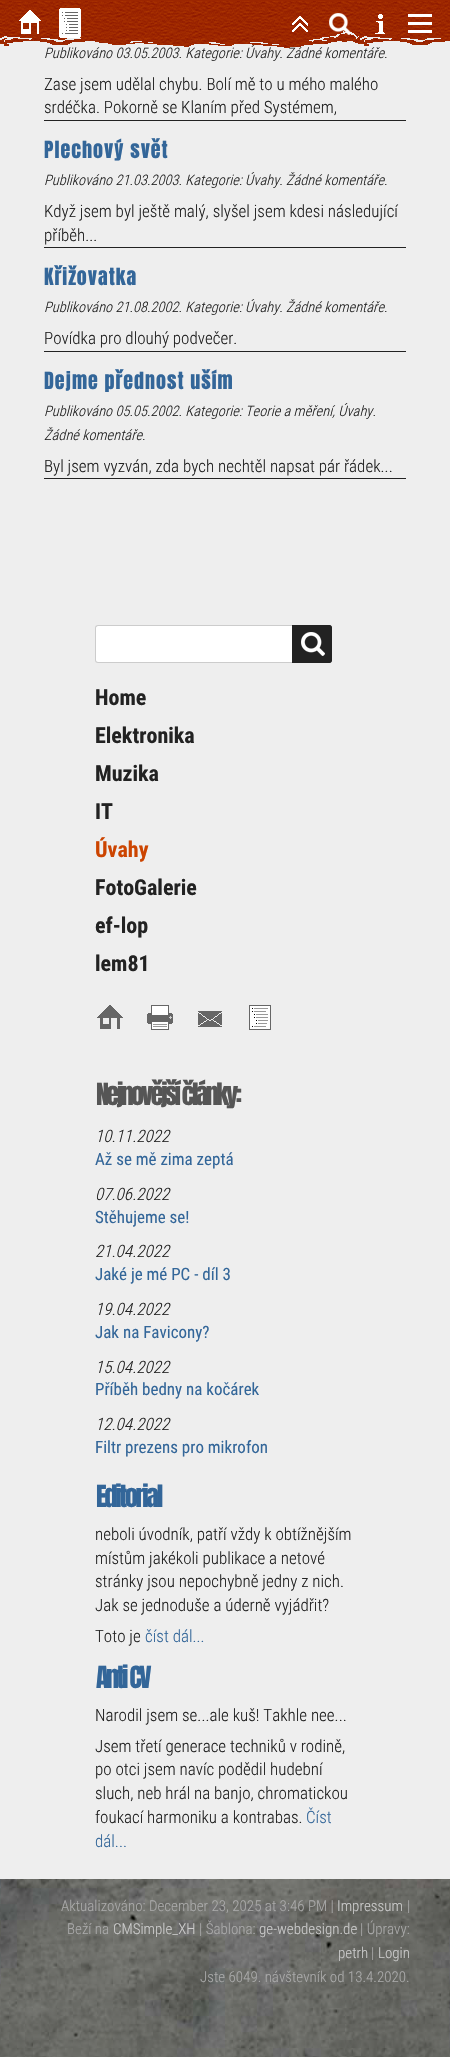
void draw(SkCanvas* canvas) {
	SkPaint paint;
	paint.setAntiAlias(true);
	auto spacedText = [&](const char* s, float x, float y, const SkFont& font, const SkPaint& ink, float letter, float word) {
		std::vector<SkGlyphID> glyphs(font.countText(s, strlen(s), SkTextEncoding::kUTF8));
		std::vector<float> xs(glyphs.size());
		font.textToGlyphs(s, strlen(s), SkTextEncoding::kUTF8, glyphs);
		font.getXPos(glyphs, xs, x);
		float extra = 0;
		for (size_t i = 0; i < glyphs.size(); i++) {
			xs[i] += extra;
			extra += letter + word * (glyphs[i] == font.unicharToGlyph(' '));
		}
		canvas->drawTextBlob(SkTextBlob::MakeFromPosHGlyphs(glyphs, xs, y, font), 0, 0, ink);
	};
	auto svgPath = [&](const char* data, bool evenOdd = false) {
		SkPath result = *SkParsePath::FromSVGString(data);
		if (evenOdd) result.setFillType(SkPathFillType::kEvenOdd);
		return result;
	};
	canvas->clear(0xffeeeeee);
	SkFont f1(fontMgr->matchFamilyStyle("Roboto Condensed", SkFontStyle(300, SkFontStyle::kNormal_Width, SkFontStyle::kItalic_Slant)), 14.45);
	f1.setSubpixel(true);
	paint.setColor(0xff222222);
	canvas->drawString("Publikováno 03.05.2003. Kategorie: Úvahy. Žádné komentáře.", 44, 58, f1, paint);
	canvas->drawImageRect(SkImages::DeferredFromEncodedData(SkData::MakeFromFileName("img1.png")), SkRect::MakeXYWH(0, 0, 450, 48), SkSamplingOptions());
	canvas->drawImageRect(SkImages::DeferredFromEncodedData(SkData::MakeFromFileName("img2.png")), SkRect::MakeXYWH(19, 10, 22, 24), SkSamplingOptions());
	canvas->drawImageRect(SkImages::DeferredFromEncodedData(SkData::MakeFromFileName("img3.png")), SkRect::MakeXYWH(59, 8, 22, 30), SkSamplingOptions());
	canvas->drawImageRect(SkImages::DeferredFromEncodedData(SkData::MakeFromFileName("img4.png")), SkRect::MakeXYWH(292, 16, 16, 16), SkSamplingOptions());
	canvas->drawImageRect(SkImages::DeferredFromEncodedData(SkData::MakeFromFileName("img5.png")), SkRect::MakeXYWH(329, 13, 22, 22), SkSamplingOptions());
	canvas->drawImageRect(SkImages::DeferredFromEncodedData(SkData::MakeFromFileName("img6.png")), SkRect::MakeXYWH(375, 14, 10, 20), SkSamplingOptions());
	canvas->drawImageRect(SkImages::DeferredFromEncodedData(SkData::MakeFromFileName("img7.png")), SkRect::MakeXYWH(408, 14, 24, 19), SkSamplingOptions());
	canvas->drawRect(SkRect::MakeXYWH(44, 120, 362, 1), paint);
	SkFont f2(fontMgr->matchFamilyStyle("Roboto Condensed", SkFontStyle(300, SkFontStyle::kNormal_Width, SkFontStyle::kUpright_Slant)), 17);
	f2.setSubpixel(true);
	canvas->drawString("Zase jsem udělal chybu. Bolí mě to u mého malého", 44, 90, f2, paint);
	canvas->drawString("srdéčka. Pokorně se Klaním před Systémem,", 44, 113, f2, paint);
	SkFont f3(fontMgr->matchFamilyStyle("Anton", SkFontStyle::Normal()), 20);
	f3.setSubpixel(true);
	paint.setColor(0xff336699);
	spacedText("Plechový svět", 44, 158, f3, paint, 1, 0);
	paint.setColor(0xff222222);
	canvas->drawString("Publikováno 21.03.2003. Kategorie: Úvahy. Žádné komentáře.", 44, 185, f1, paint);
	canvas->drawRect(SkRect::MakeXYWH(44, 247, 362, 1), paint);
	canvas->drawString("Když jsem byl ještě malý, slyšel jsem kdesi následující", 44, 217, f2, paint);
	canvas->drawString("příběh...", 44, 241, f2, paint);
	paint.setColor(0xff336699);
	spacedText("Křižovatka", 44, 285, f3, paint, 1, 0);
	paint.setColor(0xff222222);
	canvas->drawString("Publikováno 21.08.2002. Kategorie: Úvahy. Žádné komentáře.", 44, 312, f1, paint);
	canvas->drawRect(SkRect::MakeXYWH(44, 351, 362, 1), paint);
	canvas->drawString("Povídka pro dlouhý podvečer.", 44, 344, f2, paint);
	paint.setColor(0xff336699);
	spacedText("Dejme přednost uším", 44, 389, f3, paint, 1, 0);
	paint.setColor(0xff222222);
	canvas->drawString("Publikováno 05.05.2002. Kategorie: Teorie a měření, Úvahy.", 44, 416, f1, paint);
	canvas->drawString("Žádné komentáře.", 44, 440, f1, paint);
	canvas->drawRect(SkRect::MakeXYWH(44, 478, 362, 1), paint);
	canvas->drawString("Byl jsem vyzván, zda bych nechtěl napsat pár řádek...", 44, 472, f2, paint);
	paint.setColor(0xffffffff);
	canvas->drawPath(svgPath("M98 625H292V663H98C96.5 663 95 661.5 95 660V628C95 626.5 96.5 625 98 625Z"), paint);
	paint.setColor(0xffcccccc);
	canvas->drawPath(svgPath("M98 625C96 625 95 626 95 628V660C95 662 96 663 98 663H292V662H98C97 662 96 661 96 660V628C96 627 97 626 98 626H292V625Z"), paint);
	paint.setColor(0xff222222);
	canvas->drawPath(svgPath("M292 625H329C330.5 625 332 626.5 332 628V660C332 661.5 330.5 663 329 663H292Z"), paint);
	canvas->drawImageRect(SkImages::DeferredFromEncodedData(SkData::MakeFromFileName("img8.png")), SkRect::MakeXYWH(301, 632, 24, 24), SkSamplingOptions());
	canvas->drawPath(svgPath("M292 625H329C331 625 332 626 332 628V660C332 662 331 663 329 663H292ZM292 626H329C330 626 331 627 331 628V660C331 661 330 662 329 662H292Z", true), paint);
	SkFont f4(fontMgr->matchFamilyStyle("Roboto Condensed", SkFontStyle::Bold()), 22);
	f4.setSubpixel(true);
	canvas->drawString("Home", 95, 705, f4, paint);
	canvas->drawString("Elektronika", 95, 743, f4, paint);
	canvas->drawString("Muzika", 95, 781, f4, paint);
	canvas->drawString("IT", 95, 819, f4, paint);
	paint.setColor(0xffcc4400);
	canvas->drawString("Úvahy", 95, 857, f4, paint);
	paint.setColor(0xff222222);
	canvas->drawString("FotoGalerie", 95, 895, f4, paint);
	canvas->drawString("ef-lop", 95, 933, f4, paint);
	canvas->drawString("lem81", 95, 971, f4, paint);
	canvas->drawImageRect(SkImages::DeferredFromEncodedData(SkData::MakeFromFileName("img9.png")), SkRect::MakeXYWH(97, 1005, 26, 24), SkSamplingOptions());
	canvas->drawImageRect(SkImages::DeferredFromEncodedData(SkData::MakeFromFileName("img10.png")), SkRect::MakeXYWH(147, 1005, 26, 25), SkSamplingOptions());
	canvas->drawImageRect(SkImages::DeferredFromEncodedData(SkData::MakeFromFileName("img11.png")), SkRect::MakeXYWH(198, 1011, 24, 16), SkSamplingOptions());
	canvas->drawImageRect(SkImages::DeferredFromEncodedData(SkData::MakeFromFileName("img12.png")), SkRect::MakeXYWH(249, 1005, 22, 25), SkSamplingOptions());
	SkFont f5(fontMgr->matchFamilyStyle("Anton", SkFontStyle::Normal()), 26);
	f5.setSubpixel(true);
	paint.setColor(0xff555555);
	spacedText("Nejnovější články:", 96, 1105, f5, paint, -2.6, 0);
	SkFont f6(fontMgr->matchFamilyStyle("Roboto Condensed", SkFontStyle(300, SkFontStyle::kNormal_Width, SkFontStyle::kItalic_Slant)), 17);
	f6.setSubpixel(true);
	paint.setColor(0xff222222);
	canvas->drawString("10.11.2022", 95, 1142, f6, paint);
	SkFont f7(fontMgr->matchFamilyStyle("Roboto Condensed", SkFontStyle::Normal()), 17);
	f7.setSubpixel(true);
	paint.setColor(0xff336699);
	canvas->drawString("Až se mě zima zeptá", 95, 1165, f7, paint);
	paint.setColor(0xff222222);
	canvas->drawString("07.06.2022", 95, 1200, f6, paint);
	paint.setColor(0xff336699);
	canvas->drawString("Stěhujeme se!", 95, 1223, f7, paint);
	paint.setColor(0xff222222);
	canvas->drawString("21.04.2022", 95, 1257, f6, paint);
	paint.setColor(0xff336699);
	canvas->drawString("Jaké je mé PC - díl 3", 95, 1280, f7, paint);
	paint.setColor(0xff222222);
	canvas->drawString("19.04.2022", 95, 1315, f6, paint);
	paint.setColor(0xff336699);
	canvas->drawString("Jak na Favicony?", 95, 1338, f7, paint);
	paint.setColor(0xff222222);
	canvas->drawString("15.04.2022", 95, 1373, f6, paint);
	paint.setColor(0xff336699);
	canvas->drawString("Příběh bedny na kočárek", 95, 1395, f7, paint);
	paint.setColor(0xff222222);
	canvas->drawString("12.04.2022", 95, 1430, f6, paint);
	paint.setColor(0xff336699);
	canvas->drawString("Filtr prezens pro mikrofon", 95, 1453, f7, paint);
	spacedText("Editorial", 96, 1507, f5, paint, -2.25, 0);
	paint.setColor(0xff222222);
	canvas->drawString("neboli úvodník, patří vždy k obtížnějším", 95, 1540, f2, paint);
	canvas->drawString("místům jakékoli publikace a netové", 95, 1564, f2, paint);
	canvas->drawString("stránky jsou nepochybně jedny z nich.", 95, 1587, f2, paint);
	canvas->drawString("Jak se jednoduše a úderně vyjádřit?", 95, 1611, f2, paint);
	canvas->drawString("Toto je", 95, 1642, f2, paint);
	paint.setColor(0xff336699);
	canvas->drawString("číst dál...", 145, 1642, f2, paint);
	spacedText("Anti CV", 96, 1688, f5, paint, -2.5, 0);
	paint.setColor(0xff222222);
	canvas->drawString("Narodil jsem se...ale kuš! Takhle nee...", 95, 1721, f2, paint);
	canvas->drawString("Jsem třetí generace techniků v rodině,", 95, 1752, f2, paint);
	canvas->drawString("po otci jsem navíc podědil hudební", 95, 1775, f2, paint);
	canvas->drawString("sluch, neb hrál na banjo, chromatickou", 95, 1799, f2, paint);
	canvas->drawString("foukací harmoniku a kontrabas.", 95, 1823, f2, paint);
	paint.setColor(0xff336699);
	canvas->drawString("Číst", 306, 1823, f2, paint);
	canvas->drawString("dál...", 95, 1847, f2, paint);
	canvas->drawImageRect(SkImages::DeferredFromEncodedData(SkData::MakeFromFileName("img13.png")), SkRect::MakeXYWH(0, 1879, 450, 178), SkSamplingOptions());
	SkFont f8(fontMgr->matchFamilyStyle("Roboto Condensed", SkFontStyle(300, SkFontStyle::kNormal_Width, SkFontStyle::kUpright_Slant)), 15);
	f8.setSubpixel(true);
	paint.setColor(0xffaaaaaa);
	canvas->drawString("Aktualizováno: December 23, 2025 at 3:46 PM |", 61, 1911, f8, paint);
	paint.setColor(0xffcccccc);
	canvas->drawString("Impressum", 337, 1911, f8, paint);
	paint.setColor(0xffaaaaaa);
	canvas->drawString("|", 407, 1911, f8, paint);
	canvas->drawString("Beží na", 67, 1934, f8, paint);
	paint.setColor(0xffcccccc);
	canvas->drawString("CMSimple_XH", 113, 1934, f8, paint);
	paint.setColor(0xffaaaaaa);
	canvas->drawString("| Šablona:", 199, 1934, f8, paint);
	paint.setColor(0xffcccccc);
	canvas->drawString("ge-webdesign.de", 259, 1934, f8, paint);
	paint.setColor(0xffaaaaaa);
	canvas->drawString("| Úpravy:", 360, 1934, f8, paint);
	paint.setColor(0xffcccccc);
	canvas->drawString("petrh", 338, 1958, f8, paint);
	paint.setColor(0xffaaaaaa);
	canvas->drawString("|", 371, 1958, f8, paint);
	paint.setColor(0xffcccccc);
	canvas->drawString("Login", 378, 1958, f8, paint);
	paint.setColor(0xffaaaaaa);
	canvas->drawString("Jste 6049. návštevník od 13.4.2020.", 200, 1982, f8, paint);
}
